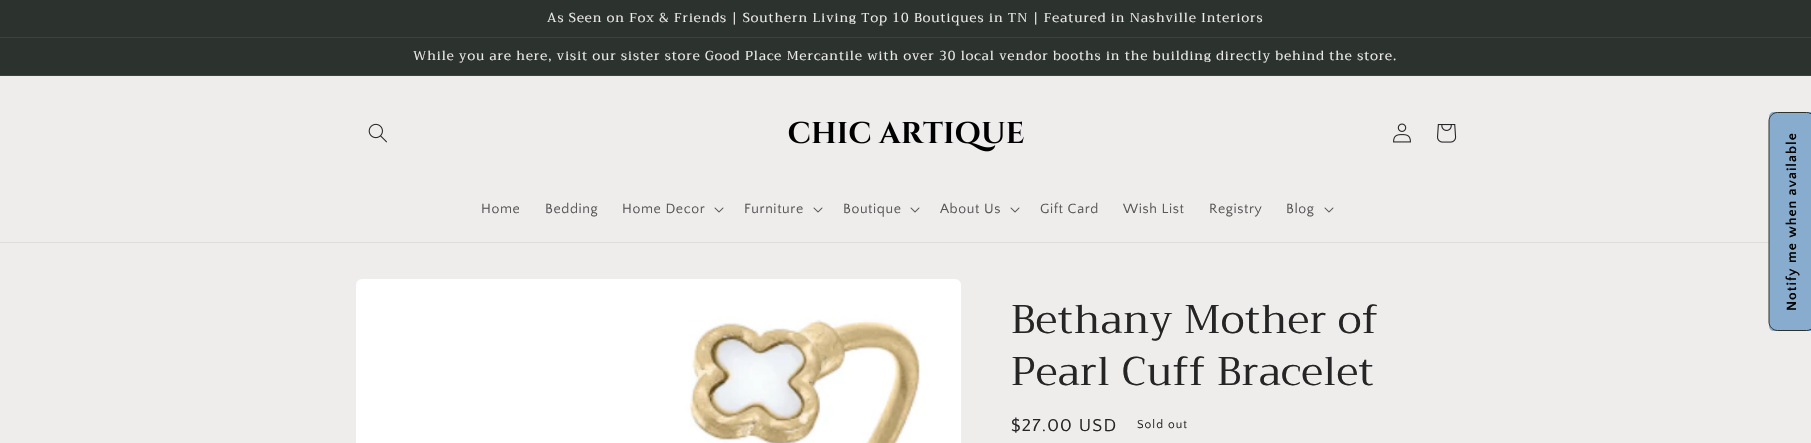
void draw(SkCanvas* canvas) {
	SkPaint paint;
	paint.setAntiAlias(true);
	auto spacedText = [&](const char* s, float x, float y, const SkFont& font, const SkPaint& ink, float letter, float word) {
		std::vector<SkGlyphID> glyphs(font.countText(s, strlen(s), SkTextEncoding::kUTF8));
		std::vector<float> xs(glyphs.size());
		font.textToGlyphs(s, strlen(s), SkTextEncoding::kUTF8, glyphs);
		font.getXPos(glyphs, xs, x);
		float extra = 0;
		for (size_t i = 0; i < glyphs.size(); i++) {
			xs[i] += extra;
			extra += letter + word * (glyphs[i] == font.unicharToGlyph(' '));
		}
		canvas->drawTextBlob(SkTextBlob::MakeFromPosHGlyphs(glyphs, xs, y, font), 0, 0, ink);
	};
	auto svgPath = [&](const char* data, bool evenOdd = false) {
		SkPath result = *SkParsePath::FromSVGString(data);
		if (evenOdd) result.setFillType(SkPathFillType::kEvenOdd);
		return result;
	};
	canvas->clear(0xffefecec);
	paint.setColor(0xff2c332f);
	canvas->drawRect(SkRect::MakeXYWH(0, 0, 1811, 37), paint);
	paint.setColor(0xff3c423e);
	canvas->drawRect(SkRect::MakeXYWH(0, 37, 1811, 1), paint);
	SkFont f1(fontMgr->matchFamilyStyle("Trirong", SkFontStyle::Normal()), 13);
	f1.setSubpixel(true);
	paint.setColor(0xffefecec);
	spacedText("As Seen on Fox & Friends | Southern Living Top 10 Boutiques in TN | Featured in Nashville Interiors", 547, 22, f1, paint, 1, 0);
	paint.setColor(0xff2c332f);
	canvas->drawRect(SkRect::MakeXYWH(0, 38, 1811, 37), paint);
	paint.setColor(0xff3c423e);
	canvas->drawRect(SkRect::MakeXYWH(0, 75, 1811, 1), paint);
	paint.setColor(0xffefecec);
	spacedText("While you are here, visit our sister store Good Place Mercantile with over 30 local vendor booths in the building directly behind the store.", 413, 60, f1, paint, 1, 0);
	paint.setColor(0xffdfdcdc);
	canvas->drawRect(SkRect::MakeXYWH(0, 242, 1769, 1), paint);
	canvas->drawImageRect(SkImages::DeferredFromEncodedData(SkData::MakeFromFileName("img1.png")), SkRect::MakeXYWH(368, 123, 19, 20), SkSamplingOptions());
	canvas->drawImageRect(SkImages::DeferredFromEncodedData(SkData::MakeFromFileName("img2.png")), SkRect::MakeXYWH(788, 121, 236, 31), SkSamplingOptions());
	canvas->drawImageRect(SkImages::DeferredFromEncodedData(SkData::MakeFromFileName("img3.png")), SkRect::MakeXYWH(1393, 123, 18, 20), SkSamplingOptions());
	canvas->drawImageRect(SkImages::DeferredFromEncodedData(SkData::MakeFromFileName("img4.png")), SkRect::MakeXYWH(1437, 124, 20, 19), SkSamplingOptions());
	SkFont f2(fontMgr->matchFamilyStyle("Quattrocento Sans", SkFontStyle::Normal()), 14);
	f2.setSubpixel(true);
	paint.setColor(0xff585757);
	spacedText("Home", 481, 213, f2, paint, 0.6, 0);
	spacedText("Bedding", 545, 213, f2, paint, 0.6, 0);
	spacedText("Home Decor", 622, 213, f2, paint, 0.6, 0);
	canvas->drawImageRect(SkImages::DeferredFromEncodedData(SkData::MakeFromFileName("img5.png")), SkRect::MakeXYWH(714, 207, 10, 6), SkSamplingOptions());
	spacedText("Furniture", 744, 213, f2, paint, 0.6, 0);
	canvas->drawImageRect(SkImages::DeferredFromEncodedData(SkData::MakeFromFileName("img5.png")), SkRect::MakeXYWH(813, 207, 10, 6), SkSamplingOptions());
	spacedText("Boutique", 843, 213, f2, paint, 0.6, 0);
	canvas->drawImageRect(SkImages::DeferredFromEncodedData(SkData::MakeFromFileName("img5.png")), SkRect::MakeXYWH(910, 207, 10, 6), SkSamplingOptions());
	spacedText("About Us", 940, 213, f2, paint, 0.6, 0);
	canvas->drawImageRect(SkImages::DeferredFromEncodedData(SkData::MakeFromFileName("img5.png")), SkRect::MakeXYWH(1010, 207, 10, 6), SkSamplingOptions());
	spacedText("Gift Card", 1040, 213, f2, paint, 0.6, 0);
	spacedText("Wish List", 1123, 213, f2, paint, 0.6, 0);
	spacedText("Registry", 1209, 213, f2, paint, 0.6, 0);
	spacedText("Blog", 1286, 213, f2, paint, 0.6, 0);
	canvas->drawImageRect(SkImages::DeferredFromEncodedData(SkData::MakeFromFileName("img5.png")), SkRect::MakeXYWH(1324, 207, 10, 6), SkSamplingOptions());
	paint.setColor(0xff88acce);
	canvas->drawPath(svgPath("M1769 326V117C1769 114 1771 112 1774 112H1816V331H1774C1771 331 1769 329 1769 326Z"), paint);
	SkFont f3(fontMgr->matchFamilyStyle("Quattrocento Sans", SkFontStyle::Bold()), 14);
	f3.setSubpixel(true);
	paint.setColor(0xff050505);
	canvas->save();
	canvas->rotate(-90, 1796, 311);
	spacedText("Notify me when available", 1796, 311, f3, paint, 1, 0);
	canvas->restore();
	paint.setStroke(true);
	paint.setStrokeWidth(1);
	paint.setColor(0xff2c332f);
	canvas->drawPath(svgPath("M1769 322V121C1769 116.5 1773 112.5 1777.5 112.5H1806.5C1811.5 112.5 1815 116.5 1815 121V322C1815 326.5 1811.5 330.5 1806.5 330.5H1777.5C1773 330.5 1769 326.5 1769 322Z"), paint);
	canvas->drawImageRect(SkImages::DeferredFromEncodedData(SkData::MakeFromFileName("img6.png")), SkRect::MakeXYWH(356, 279, 605, 164), SkSamplingOptions());
	SkFont f4(fontMgr->matchFamilyStyle("Trirong", SkFontStyle::Normal()), 40);
	f4.setSubpixel(true);
	paint.setStroke(false);
	paint.setColor(0xff252525);
	spacedText("Bethany Mother of", 1011, 333, f4, paint, 0.6, 0);
	spacedText("Pearl Cuff Bracelet", 1011, 385, f4, paint, 0.6, 0);
	SkFont f5(fontMgr->matchFamilyStyle("Quattrocento Sans", SkFontStyle::Normal()), 18);
	f5.setSubpixel(true);
	spacedText("$27.00 USD", 1011, 431, f5, paint, 1.25, 0);
	SkFont f6(fontMgr->matchFamilyStyle("Quattrocento Sans", SkFontStyle::Normal()), 12);
	f6.setSubpixel(true);
	spacedText("Sold out", 1137, 428, f6, paint, 1, 0);
}
